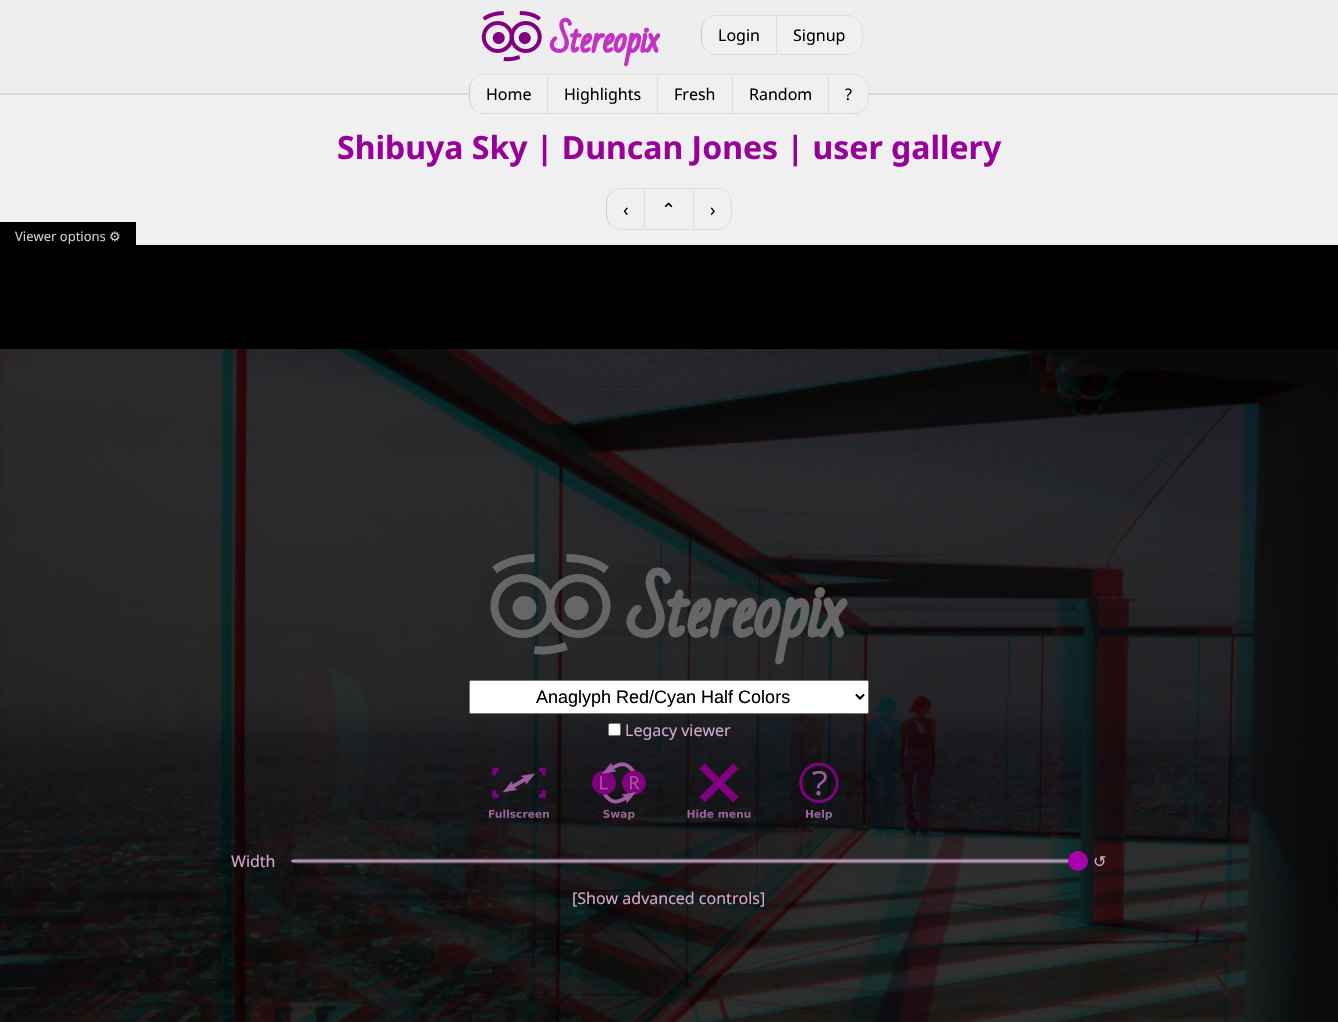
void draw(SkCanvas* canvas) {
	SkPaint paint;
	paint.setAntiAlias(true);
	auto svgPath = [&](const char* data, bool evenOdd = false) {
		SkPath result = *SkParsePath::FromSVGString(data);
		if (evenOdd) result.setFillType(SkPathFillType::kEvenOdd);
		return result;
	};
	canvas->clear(0xfff0f0f1);
	paint.setColor(0xffeeeeee);
	canvas->drawRect(SkRect::MakeXYWH(0, 0, 1338, 93), paint);
	paint.setColor(0xffdddddd);
	canvas->drawRect(SkRect::MakeXYWH(0, 93, 1338, 2), paint);
	canvas->drawImageRect(SkImages::DeferredFromEncodedData(SkData::MakeFromFileName("img1.png")), SkRect::MakeXYWH(481, 11, 180, 56), SkSamplingOptions());
	paint.setColor(0xfff0f0f1);
	canvas->drawPath(svgPath("M716 15H777V55H716C707.5 55 701 48.5 701 40V30C701 21.5 707.5 15 716 15Z"), paint);
	paint.setColor(0xffdddddd);
	canvas->drawPath(svgPath("M716 15C712 15 708 17 706 20C708 18 712 16 716 16H776L777 15Z"), paint);
	canvas->drawPath(svgPath("M777 15L776 16V54L777 55Z"), paint);
	canvas->drawPath(svgPath("M777 55L776 54H716C712 54 708 52 706 50C708 53 712 55 716 55Z"), paint);
	paint.setColor(0xffcccccc);
	canvas->drawPath(svgPath("M701 30C701 37 700 45 705.5 50.5L706 50C702 46 702 40.5 702 35C702 29.5 702 24 706 20L705.5 19.5C703 22 701 26 701 30Z"), paint);
	SkFont f1(fontMgr->matchFamilyStyle("Noto Sans", SkFontStyle::Normal()), 16);
	f1.setSubpixel(true);
	paint.setColor(0xff000000);
	canvas->drawString("Login", 718, 41, f1, paint);
	paint.setColor(0xfff0f0f1);
	canvas->drawPath(svgPath("M777 15H848C856.5 15 863 21.5 863 30V40C863 48.5 856.5 55 848 55H777Z"), paint);
	paint.setColor(0xffdddddd);
	canvas->drawPath(svgPath("M777 15H848C856 15 863 22 863 30V40C863 48 856 55 848 55H777ZM777 16H848C856 16 862 22 862 30V40C862 48 856 54 848 54H777Z", true), paint);
	paint.setColor(0xff000000);
	canvas->drawString("Signup", 793, 41, f1, paint);
	paint.setColor(0xfff0f0f1);
	canvas->drawPath(svgPath("M484 74H548V114H484C475.5 114 469 107.5 469 99V89C469 80.5 475.5 74 484 74Z"), paint);
	paint.setColor(0xffdddddd);
	canvas->drawPath(svgPath("M484 74C480 74 476 76 474 78V79C476 76 480 75 484 75H547L548 74Z"), paint);
	canvas->drawPath(svgPath("M548 74L547 75V113L548 114Z"), paint);
	canvas->drawPath(svgPath("M548 114L547 113H484C480 113 476 112 474 109V110C476 112 480 114 484 114Z"), paint);
	paint.setColor(0xffcccccc);
	canvas->drawPath(svgPath("M469 89C469 96 468 104 473.5 109.5L474 109C470 105 470 99.5 470 94C470 88.5 470 83 474 79L473.5 78.5C471 81 469 85 469 89Z"), paint);
	paint.setColor(0xff000000);
	canvas->drawString("Home", 486, 100, f1, paint);
	paint.setColor(0xfff0f0f1);
	canvas->drawRect(SkRect::MakeXYWH(548, 75, 109, 20), paint);
	paint.setColor(0xffdddddd);
	canvas->drawRect(SkRect::MakeXYWH(548, 74, 281, 1), paint);
	canvas->drawRect(SkRect::MakeXYWH(657, 74, 1, 40), paint);
	canvas->drawRect(SkRect::MakeXYWH(548, 113, 110, 1), paint);
	paint.setColor(0xff000000);
	canvas->drawString("Highlights", 564, 100, f1, paint);
	paint.setColor(0xfff0f0f1);
	canvas->drawRect(SkRect::MakeXYWH(658, 75, 74, 20), paint);
	paint.setColor(0xffdddddd);
	canvas->drawRect(SkRect::MakeXYWH(732, 74, 1, 40), paint);
	canvas->drawRect(SkRect::MakeXYWH(658, 113, 75, 1), paint);
	paint.setColor(0xff000000);
	canvas->drawString("Fresh", 674, 100, f1, paint);
	paint.setColor(0xfff0f0f1);
	canvas->drawRect(SkRect::MakeXYWH(733, 75, 95, 20), paint);
	paint.setColor(0xffdddddd);
	canvas->drawRect(SkRect::MakeXYWH(828, 74, 1, 40), paint);
	canvas->drawRect(SkRect::MakeXYWH(733, 113, 96, 1), paint);
	paint.setColor(0xff000000);
	canvas->drawString("Random", 749, 100, f1, paint);
	paint.setColor(0xfff0f0f1);
	canvas->drawPath(svgPath("M829 74H854C862.5 74 869 80.5 869 89V99C869 107.5 862.5 114 854 114H829Z"), paint);
	paint.setColor(0xffdddddd);
	canvas->drawPath(svgPath("M829 74H854C862 74 869 81 869 89V99C869 107 862 114 854 114H829ZM829 75H854C862 75 868 81 868 89V99C868 107 862 113 854 113H829Z", true), paint);
	paint.setColor(0xff000000);
	canvas->drawString("?", 845, 100, f1, paint);
	SkFont f2(fontMgr->matchFamilyStyle("Noto Sans", SkFontStyle::Bold()), 32);
	f2.setSubpixel(true);
	paint.setColor(0xff990099);
	canvas->drawString("Shibuya Sky | Duncan Jones | user gallery", 337, 159, f2, paint);
	paint.setColor(0xffdddddd);
	canvas->drawRect(SkRect::MakeXYWH(645, 188, 49, 1), paint);
	canvas->drawRect(SkRect::MakeXYWH(693, 188, 1, 42), paint);
	canvas->drawRect(SkRect::MakeXYWH(645, 229, 49, 1), paint);
	SkFont f3(fontMgr->matchFamilyStyle("DejaVu Sans", SkFontStyle::Normal()), 18);
	f3.setSubpixel(true);
	paint.setColor(0xff000000);
	canvas->drawString("⌃", 661, 216, f3, paint);
	paint.setColor(0xffdddddd);
	canvas->drawPath(svgPath("M621 188C617 188 613 190 610.5 192.5L611 193C613.5 190.5 617 189 621 189H644L645 188Z"), paint);
	canvas->drawPath(svgPath("M645 188L644 189V229L645 230Z"), paint);
	canvas->drawPath(svgPath("M645 230L644 229H621C617 229 613.5 227.5 611 225L610.5 225.5C613 228 617 230 621 230Z"), paint);
	paint.setColor(0xffcccccc);
	canvas->drawPath(svgPath("M606 203C606 210.5 604.5 219.5 610.5 225.5L611 225C606.5 220.5 607 215 607 209C607 203 606.5 197.5 611 193L610.5 192.5C608 195 606 199 606 203Z"), paint);
	SkFont f4(fontMgr->matchFamilyStyle("Noto Sans", SkFontStyle::Normal()), 18);
	f4.setSubpixel(true);
	paint.setColor(0xff000000);
	canvas->drawString("‹", 623, 216, f4, paint);
	paint.setColor(0xffdddddd);
	canvas->drawPath(svgPath("M694 188H717C725 188 732 195 732 203V215C732 223 725 230 717 230H694ZM694 189H717C725 189 731 195 731 203V215C731 223 725 229 717 229H694Z", true), paint);
	paint.setColor(0xff000000);
	canvas->drawString("›", 710, 216, f4, paint);
	canvas->drawRect(SkRect::MakeXYWH(0, 245, 1338, 104), paint);
	canvas->drawRect(SkRect::MakeXYWH(0, 222, 136, 23), paint);
	SkFont f5(fontMgr->matchFamilyStyle("Noto Sans", SkFontStyle::Normal()), 13);
	f5.setSubpixel(true);
	paint.setColor(0xffcccccc);
	canvas->drawString("Viewer options", 15, 241, f5, paint);
	SkFont f6(fontMgr->matchFamilyStyle("DejaVu Sans", SkFontStyle::Normal()), 13);
	f6.setSubpixel(true);
	canvas->drawString("⚙", 109, 241, f6, paint);
	canvas->drawImageRect(SkImages::DeferredFromEncodedData(SkData::MakeFromFileName("img2.png")), SkRect::MakeXYWH(0, 349, 1338, 673), SkSamplingOptions());
	canvas->drawImageRect(SkImages::DeferredFromEncodedData(SkData::MakeFromFileName("img3.png")), SkRect::MakeXYWH(490, 554, 358, 111), SkSamplingOptions());
	paint.setColor(0xffffffff);
	canvas->drawRoundRect(SkRect::MakeXYWH(469.5, 680.5, 399, 33), 1.5, 1.5, paint);
	paint.setStroke(true);
	paint.setStrokeWidth(1);
	paint.setColor(0xff767676);
	canvas->drawRoundRect(SkRect::MakeXYWH(469.5, 680.5, 399, 33), 1.5, 1.5, paint);
	paint.setStrokeWidth(2);
	paint.setColor(0xff000000);
	canvas->drawPath(svgPath("M856 694.5L860 698.5L864 694.5"), paint);
	SkFont f7(fontMgr->matchFamilyStyle("Liberation Sans", SkFontStyle::Normal()), 18);
	f7.setSubpixel(true);
	paint.setStroke(false);
	canvas->drawString("Anaglyph Red/Cyan Half Colors", 536, 703, f7, paint);
	paint.setColor(0xffffffff);
	canvas->drawRoundRect(SkRect::MakeXYWH(608.5, 723.5, 12, 12), 1.5, 1.5, paint);
	paint.setStroke(true);
	paint.setStrokeWidth(1);
	paint.setColor(0xff767676);
	canvas->drawRoundRect(SkRect::MakeXYWH(608.5, 723.5, 12, 12), 1.5, 1.5, paint);
	paint.setStroke(false);
	paint.setColor(0xffccaacc);
	canvas->drawString("Legacy viewer", 625, 736, f1, paint);
	canvas->drawImageRect(SkImages::DeferredFromEncodedData(SkData::MakeFromFileName("img4.png")), SkRect::MakeXYWH(489, 767, 60, 51), SkSamplingOptions());
	canvas->drawImageRect(SkImages::DeferredFromEncodedData(SkData::MakeFromFileName("img5.png")), SkRect::MakeXYWH(592, 762, 54, 58), SkSamplingOptions());
	canvas->drawImageRect(SkImages::DeferredFromEncodedData(SkData::MakeFromFileName("img6.png")), SkRect::MakeXYWH(687, 763, 64, 55), SkSamplingOptions());
	canvas->drawImageRect(SkImages::DeferredFromEncodedData(SkData::MakeFromFileName("img7.png")), SkRect::MakeXYWH(799, 762, 40, 58), SkSamplingOptions());
	canvas->drawString("Width", 231, 867, f1, paint);
	paint.setColor(0xffaa00aa);
	canvas->drawCircle(1078, 861, 10, paint);
	SkFont f8(fontMgr->matchFamilyStyle("DejaVu Sans", SkFontStyle::Normal()), 16);
	f8.setSubpixel(true);
	paint.setColor(0xffccaacc);
	canvas->drawString("↺", 1093, 867, f8, paint);
	canvas->drawString("[Show advanced controls]", 572, 904, f1, paint);
}
